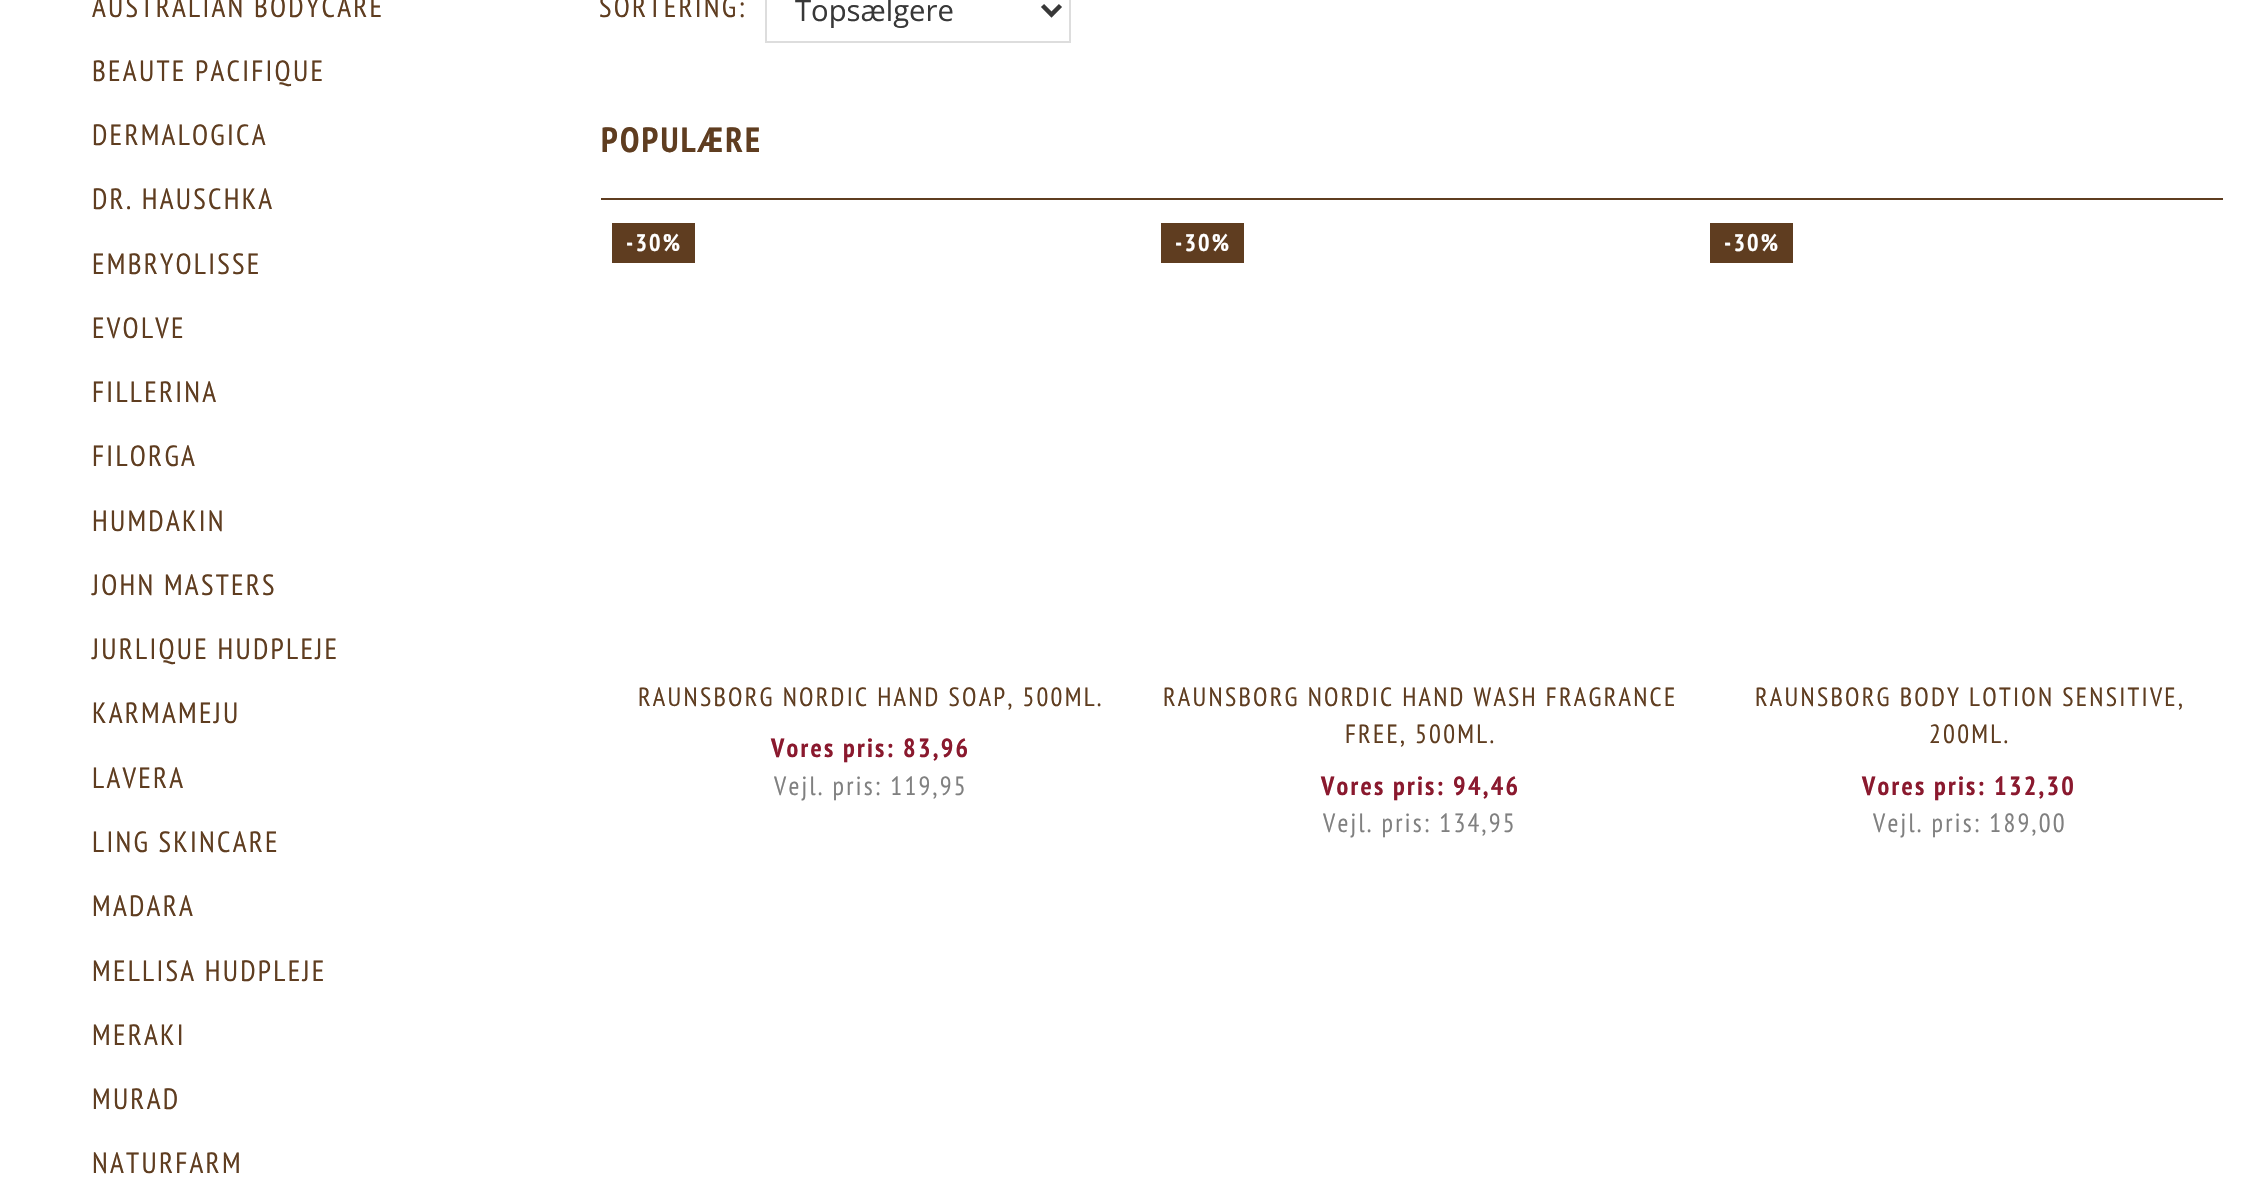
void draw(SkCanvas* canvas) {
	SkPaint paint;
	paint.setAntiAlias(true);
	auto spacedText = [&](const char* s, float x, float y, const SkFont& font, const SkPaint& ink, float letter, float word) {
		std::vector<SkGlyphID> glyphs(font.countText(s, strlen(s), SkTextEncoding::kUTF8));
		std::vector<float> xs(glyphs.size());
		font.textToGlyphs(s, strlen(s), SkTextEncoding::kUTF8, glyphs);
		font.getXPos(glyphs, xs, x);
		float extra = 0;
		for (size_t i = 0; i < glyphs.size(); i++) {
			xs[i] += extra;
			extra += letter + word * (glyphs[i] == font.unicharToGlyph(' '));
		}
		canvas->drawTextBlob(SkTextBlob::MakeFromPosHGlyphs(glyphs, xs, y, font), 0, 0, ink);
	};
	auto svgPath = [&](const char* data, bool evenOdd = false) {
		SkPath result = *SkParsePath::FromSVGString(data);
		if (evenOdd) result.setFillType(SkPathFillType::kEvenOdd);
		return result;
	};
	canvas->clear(0xffffffff);
	SkFont f1(fontMgr->matchFamilyStyle("PT Sans Narrow", SkFontStyle::Normal()), 29.25);
	f1.setSubpixel(true);
	paint.setColor(0xff5f3d20);
	spacedText("AUSTRALIAN BODYCARE", 92, 17, f1, paint, 2.25, 0);
	spacedText("BEAUTE PACIFIQUE", 92, 81, f1, paint, 2.25, 0);
	spacedText("DERMALOGICA", 92, 145, f1, paint, 2.25, 0);
	spacedText("DR. HAUSCHKA", 92, 209, f1, paint, 2.25, 0);
	spacedText("EMBRYOLISSE", 92, 274, f1, paint, 2.25, 0);
	spacedText("EVOLVE", 92, 338, f1, paint, 2.25, 0);
	spacedText("FILLERINA", 92, 402, f1, paint, 2.25, 0);
	spacedText("FILORGA", 92, 466, f1, paint, 2.25, 0);
	spacedText("HUMDAKIN", 92, 531, f1, paint, 2.25, 0);
	spacedText("JOHN MASTERS", 92, 595, f1, paint, 2.25, 0);
	spacedText("JURLIQUE HUDPLEJE", 92, 659, f1, paint, 2.25, 0);
	spacedText("KARMAMEJU", 92, 723, f1, paint, 2.25, 0);
	spacedText("LAVERA", 92, 788, f1, paint, 2.25, 0);
	spacedText("LING SKINCARE", 92, 852, f1, paint, 2.25, 0);
	spacedText("MADARA", 92, 916, f1, paint, 2.25, 0);
	spacedText("MELLISA HUDPLEJE", 92, 981, f1, paint, 2.25, 0);
	spacedText("MERAKI", 92, 1045, f1, paint, 2.25, 0);
	spacedText("MURAD", 92, 1109, f1, paint, 2.25, 0);
	spacedText("NATURFARM", 92, 1173, f1, paint, 2.25, 0);
	spacedText("SORTERING:", 599, 17, f1, paint, 2.25, 0);
	paint.setStroke(true);
	paint.setStrokeWidth(2);
	paint.setColor(0xffdddddd);
	canvas->drawRect(SkRect::MakeXYWH(766, -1, 304, 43), paint);
	paint.setStrokeWidth(4.5);
	paint.setColor(0xff383838);
	canvas->drawPath(svgPath("M1042.5 5.5L1051.5 14.5L1060.5 5.5"), paint);
	SkFont f2(fontMgr->matchFamilyStyle("Open Sans", SkFontStyle::Normal()), 29.25);
	f2.setSubpixel(true);
	paint.setStroke(false);
	canvas->drawString("Topsælgere", 795, 21, f2, paint);
	paint.setColor(0xff5f3d20);
	canvas->drawRect(SkRect::MakeXYWH(601, 198, 1622, 2), paint);
	SkFont f3(fontMgr->matchFamilyStyle("PT Sans Narrow", SkFontStyle::Bold()), 35);
	f3.setSubpixel(true);
	spacedText("POPULÆRE", 601, 152, f3, paint, 2.25, 0);
	canvas->drawRect(SkRect::MakeXYWH(612, 223, 83, 40), paint);
	SkFont f4(fontMgr->matchFamilyStyle("PT Sans Narrow", SkFontStyle::Bold()), 24);
	f4.setSubpixel(true);
	paint.setColor(0xffffffff);
	spacedText("-30%", 626, 251, f4, paint, 2.25, 0);
	SkFont f5(fontMgr->matchFamilyStyle("PT Sans Narrow", SkFontStyle::Normal()), 26.3);
	f5.setSubpixel(true);
	paint.setColor(0xff5f3d20);
	spacedText("RAUNSBORG NORDIC HAND SOAP, 500ML.", 638, 706, f5, paint, 2.25, 0);
	SkFont f6(fontMgr->matchFamilyStyle("PT Sans Narrow", SkFontStyle::Bold()), 26.3);
	f6.setSubpixel(true);
	paint.setColor(0xff8a192e);
	spacedText("Vores pris: 83,96", 771, 757, f6, paint, 2.25, 0);
	paint.setColor(0xff808080);
	spacedText("Vejl. pris: 119,95", 774, 795, f5, paint, 2.25, 0);
	paint.setColor(0xff5f3d20);
	canvas->drawRect(SkRect::MakeXYWH(1161, 223, 83, 40), paint);
	paint.setColor(0xffffffff);
	spacedText("-30%", 1175, 251, f4, paint, 2.25, 0);
	paint.setColor(0xff5f3d20);
	spacedText("RAUNSBORG NORDIC HAND WASH FRAGRANCE", 1163, 706, f5, paint, 2.25, 0);
	spacedText("FREE, 500ML.", 1345, 743, f5, paint, 2.25, 0);
	paint.setColor(0xff8a192e);
	spacedText("Vores pris: 94,46", 1321, 795, f6, paint, 2.25, 0);
	paint.setColor(0xff808080);
	spacedText("Vejl. pris: 134,95", 1323, 832, f5, paint, 2.25, 0);
	paint.setColor(0xff5f3d20);
	canvas->drawRect(SkRect::MakeXYWH(1710, 223, 83, 40), paint);
	paint.setColor(0xffffffff);
	spacedText("-30%", 1724, 251, f4, paint, 2.25, 0);
	paint.setColor(0xff5f3d20);
	spacedText("RAUNSBORG BODY LOTION SENSITIVE,", 1755, 706, f5, paint, 2.25, 0);
	spacedText("200ML.", 1929, 743, f5, paint, 2.25, 0);
	paint.setColor(0xff8a192e);
	spacedText("Vores pris: 132,30", 1862, 795, f6, paint, 2.25, 0);
	paint.setColor(0xff808080);
	spacedText("Vejl. pris: 189,00", 1873, 832, f5, paint, 2.25, 0);
}
